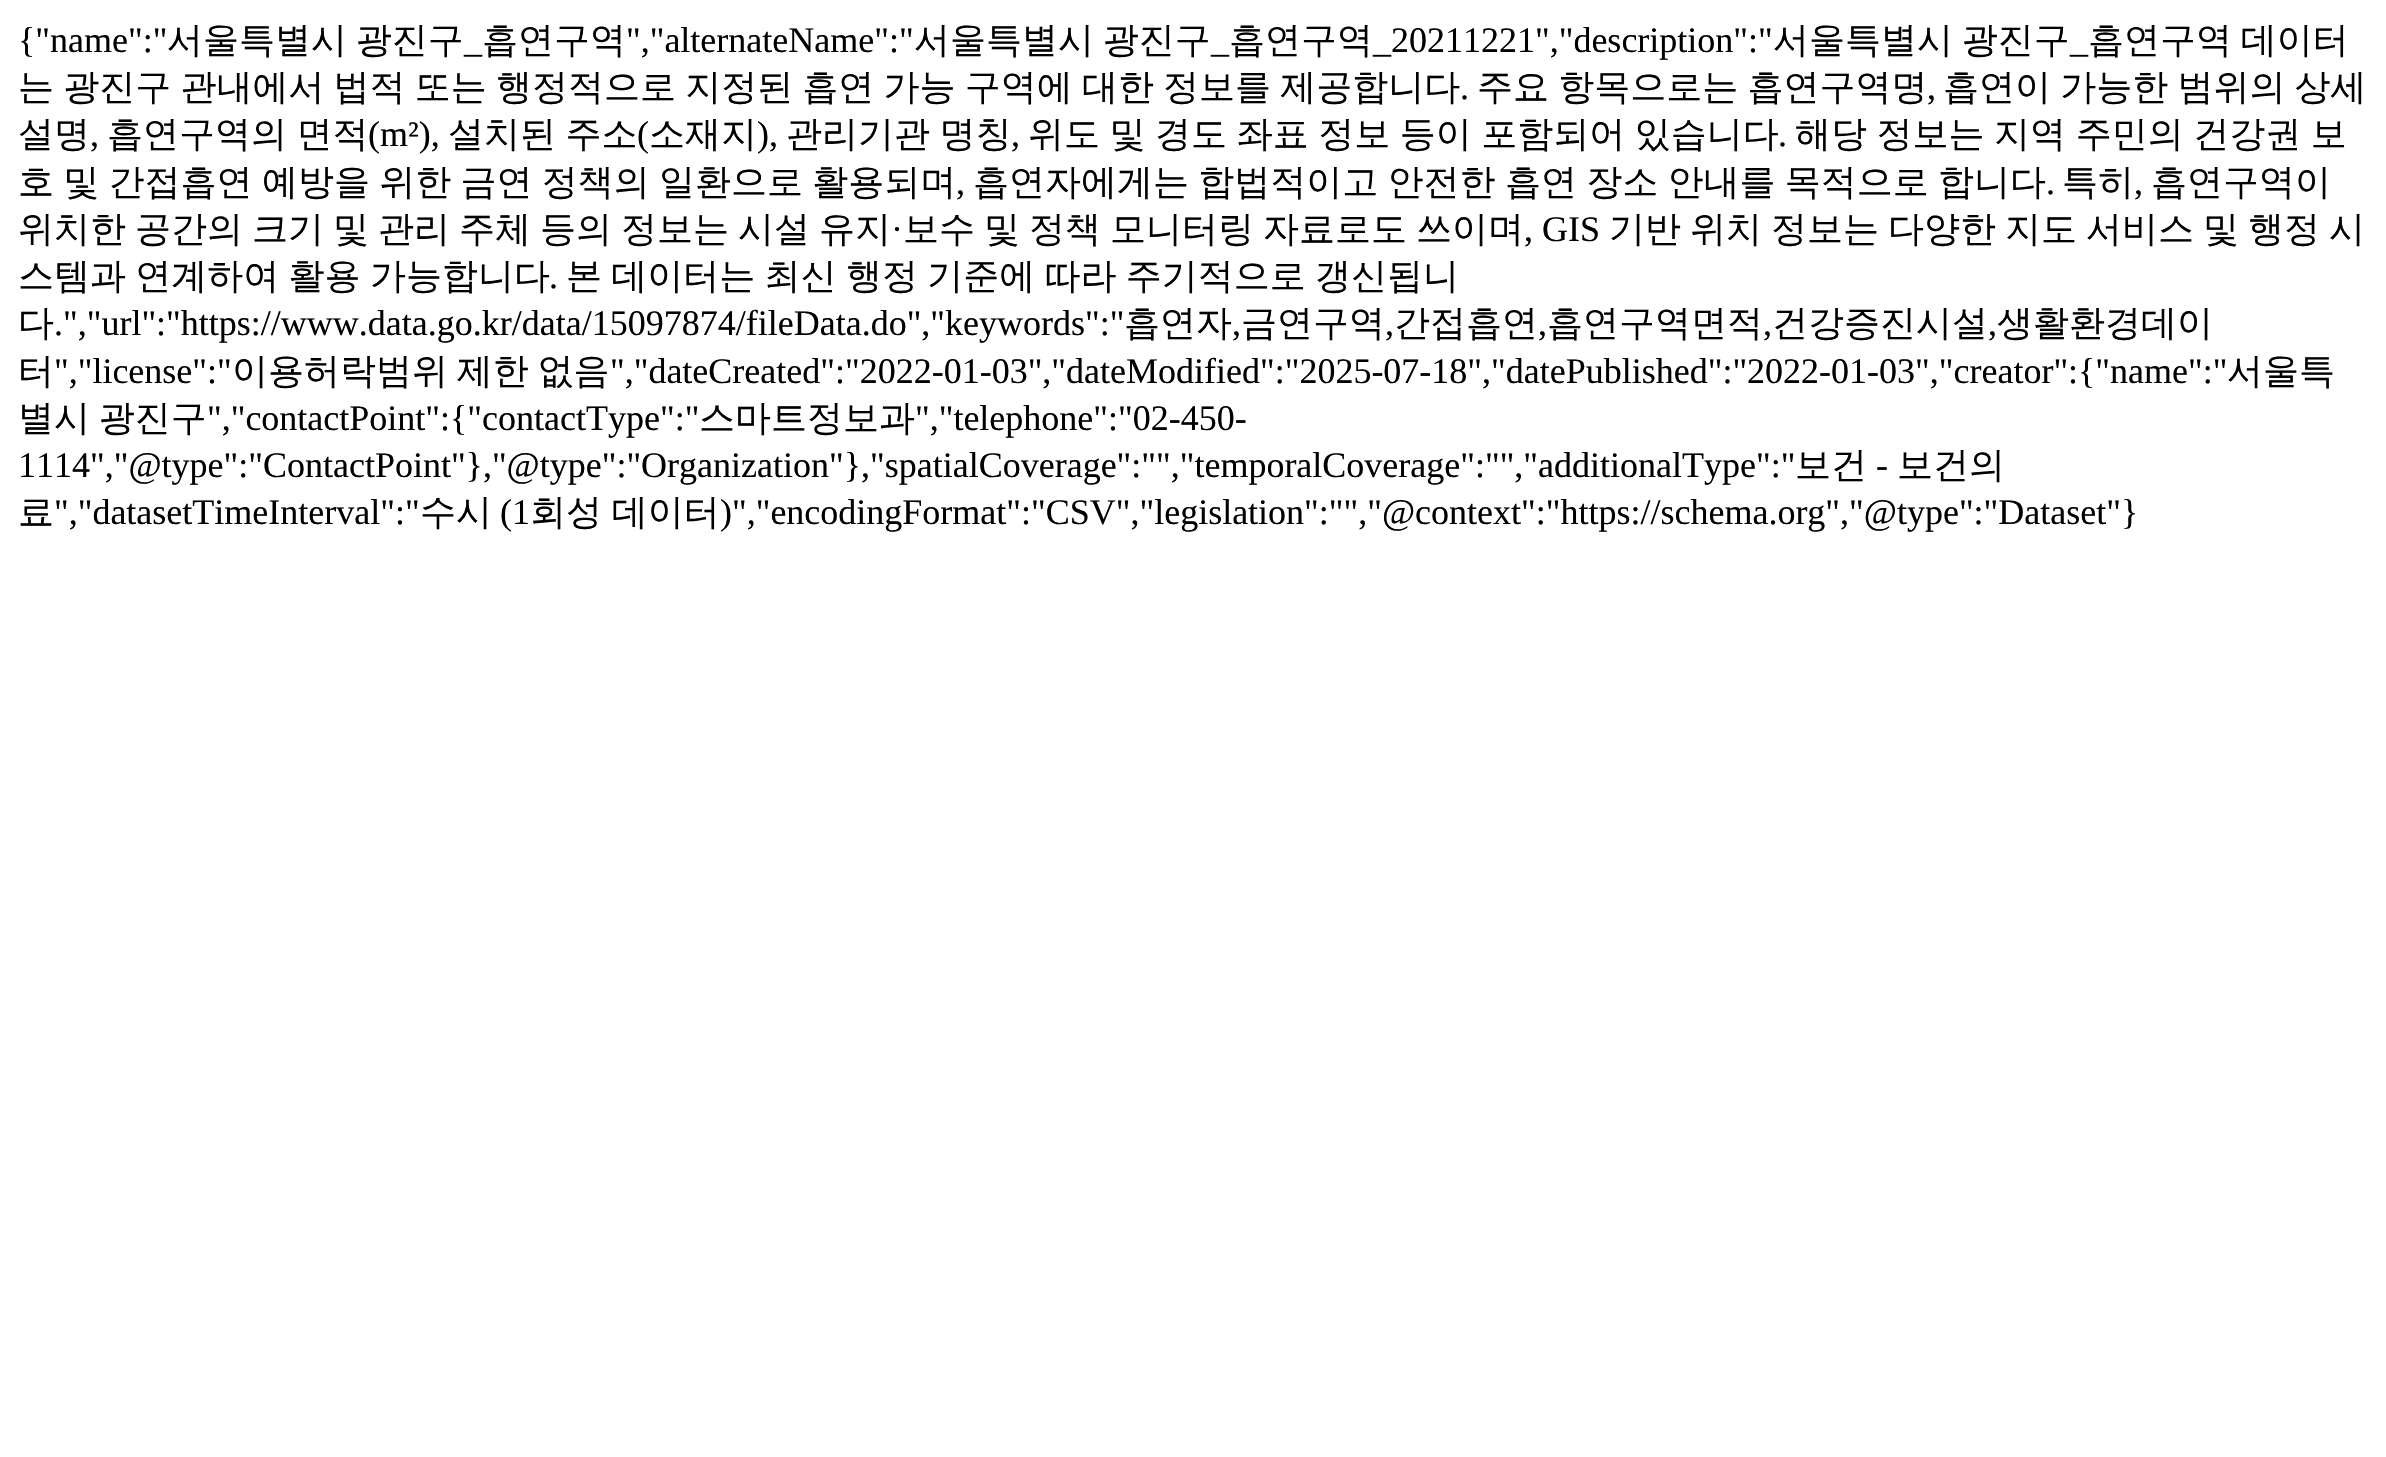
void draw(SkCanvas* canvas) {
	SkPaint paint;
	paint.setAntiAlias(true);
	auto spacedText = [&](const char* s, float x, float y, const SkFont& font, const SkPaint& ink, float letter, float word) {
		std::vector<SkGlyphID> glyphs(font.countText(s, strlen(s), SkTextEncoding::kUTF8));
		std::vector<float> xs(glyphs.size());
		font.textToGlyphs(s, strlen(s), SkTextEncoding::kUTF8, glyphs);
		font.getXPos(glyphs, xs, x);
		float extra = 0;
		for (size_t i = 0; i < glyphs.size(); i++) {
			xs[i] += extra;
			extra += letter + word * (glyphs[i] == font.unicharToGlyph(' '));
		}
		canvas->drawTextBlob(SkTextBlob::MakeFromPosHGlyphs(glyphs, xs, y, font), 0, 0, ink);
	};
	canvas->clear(0xffffffff);
	SkFont f1(fontMgr->matchFamilyStyle("Liberation Serif", SkFontStyle::Normal()), 36);
	f1.setSubpixel(true);
	paint.setColor(0xff000000);
	canvas->drawString("{\"name\":\"", 18, 52, f1, paint);
	SkFont f2(fontMgr->matchFamilyStyle("WenQuanYi Zen Hei", SkFontStyle(500, SkFontStyle::kNormal_Width, SkFontStyle::kUpright_Slant)), 36);
	f2.setSubpixel(true);
	spacedText("서울특별시 광진구", 167, 52, f2, paint, 0, -2);
	canvas->drawString("_", 464, 52, f1, paint);
	canvas->drawString("흡연구역", 482, 52, f2, paint);
	canvas->drawString("\",\"alternateName\":\"", 626, 52, f1, paint);
	spacedText("서울특별시 광진구", 914, 52, f2, paint, 0, -2);
	canvas->drawString("_", 1211, 52, f1, paint);
	canvas->drawString("흡연구역", 1229, 52, f2, paint);
	canvas->drawString("_20211221\",\"description\":\"", 1373, 52, f1, paint);
	spacedText("서울특별시 광진구", 1773, 52, f2, paint, 0, -2);
	canvas->drawString("_", 2070, 52, f1, paint);
	spacedText("흡연구역 데이터", 2088, 52, f2, paint, 0, -2);
	spacedText("는 광진구 관내에서 법적 또는 행정적으로 지정된 흡연 가능 구역에 대한 정보를 제공합니다", 18, 99, f2, paint, 0, -1.6);
	canvas->drawString(".", 1460, 99, f1, paint);
	spacedText("주요 항목으로는 흡연구역명", 1477, 99, f2, paint, 0, -1.6);
	canvas->drawString(",", 1927, 99, f1, paint);
	spacedText("흡연이 가능한 범위의 상세", 1943, 99, f2, paint, 0, -1.6);
	canvas->drawString("설명", 18, 146, f2, paint);
	canvas->drawString(",", 90, 146, f1, paint);
	spacedText("흡연구역의 면적", 107, 146, f2, paint, 0, -1.25);
	canvas->drawString("(m²),", 368, 146, f1, paint);
	spacedText("설치된 주소", 448, 146, f2, paint, 0, -1.25);
	canvas->drawString("(", 637, 146, f1, paint);
	canvas->drawString("소재지", 649, 146, f2, paint);
	canvas->drawString("),", 757, 146, f1, paint);
	spacedText("관리기관 명칭", 786, 146, f2, paint, 0, -1.25);
	canvas->drawString(",", 1011, 146, f1, paint);
	spacedText("위도 및 경도 좌표 정보 등이 포함되어 있습니다", 1028, 146, f2, paint, 0, -1.25);
	canvas->drawString(".", 1778, 146, f1, paint);
	spacedText("해당 정보는 지역 주민의 건강권 보", 1795, 146, f2, paint, 0, -1.25);
	spacedText("호 및 간접흡연 예방을 위한 금연 정책의 일환으로 활용되며", 18, 194, f2, paint, 0, -1.5);
	canvas->drawString(",", 956, 194, f1, paint);
	spacedText("흡연자에게는 합법적이고 안전한 흡연 장소 안내를 목적으로 합니다", 973, 194, f2, paint, 0, -1.5);
	canvas->drawString(".", 2046, 194, f1, paint);
	canvas->drawString("특히", 2062, 194, f2, paint);
	canvas->drawString(",", 2134, 194, f1, paint);
	canvas->drawString("흡연구역이", 2151, 194, f2, paint);
	canvas->drawString("위치한", 18, 241, f2, paint);
	canvas->drawString("공간의", 135, 241, f2, paint);
	canvas->drawString("크기", 252, 241, f2, paint);
	canvas->drawString("및", 333, 241, f2, paint);
	canvas->drawString("관리", 378, 241, f2, paint);
	canvas->drawString("주체", 459, 241, f2, paint);
	canvas->drawString("등의", 540, 241, f2, paint);
	canvas->drawString("정보는", 621, 241, f2, paint);
	canvas->drawString("시설", 738, 241, f2, paint);
	canvas->drawString("유지", 819, 241, f2, paint);
	canvas->drawString("·", 891, 241, f1, paint);
	canvas->drawString("보수", 903, 241, f2, paint);
	canvas->drawString("및", 984, 241, f2, paint);
	canvas->drawString("정책", 1029, 241, f2, paint);
	canvas->drawString("모니터링", 1110, 241, f2, paint);
	canvas->drawString("자료로도", 1263, 241, f2, paint);
	canvas->drawString("쓰이며", 1416, 241, f2, paint);
	canvas->drawString(", GIS", 1524, 241, f1, paint);
	canvas->drawString("기반", 1609, 241, f2, paint);
	canvas->drawString("위치", 1690, 241, f2, paint);
	canvas->drawString("정보는", 1771, 241, f2, paint);
	canvas->drawString("다양한", 1888, 241, f2, paint);
	canvas->drawString("지도", 2005, 241, f2, paint);
	canvas->drawString("서비스", 2086, 241, f2, paint);
	canvas->drawString("및", 2203, 241, f2, paint);
	canvas->drawString("행정", 2248, 241, f2, paint);
	canvas->drawString("시", 2329, 241, f2, paint);
	spacedText("스템과 연계하여 활용 가능합니다", 18, 288, f2, paint, 0, -1.5);
	canvas->drawString(".", 549, 288, f1, paint);
	spacedText("본 데이터는 최신 행정 기준에 따라 주기적으로 갱신됩니", 566, 288, f2, paint, 0, -1.5);
	canvas->drawString("다", 18, 335, f2, paint);
	canvas->drawString(".\",\"url\":\"https://www.data.go.kr/data/15097874/fileData.do\",\"keywords\":\"", 54, 335, f1, paint);
	canvas->drawString("흡연자", 1124, 335, f2, paint);
	canvas->drawString(",", 1232, 335, f1, paint);
	canvas->drawString("금연구역", 1241, 335, f2, paint);
	canvas->drawString(",", 1385, 335, f1, paint);
	canvas->drawString("간접흡연", 1394, 335, f2, paint);
	canvas->drawString(",", 1538, 335, f1, paint);
	canvas->drawString("흡연구역면적", 1547, 335, f2, paint);
	canvas->drawString(",", 1763, 335, f1, paint);
	canvas->drawString("건강증진시설", 1772, 335, f2, paint);
	canvas->drawString(",", 1988, 335, f1, paint);
	canvas->drawString("생활환경데이", 1997, 335, f2, paint);
	canvas->drawString("터", 18, 383, f2, paint);
	canvas->drawString("\",\"license\":\"", 54, 383, f1, paint);
	spacedText("이용허락범위 제한 없음", 232, 383, f2, paint, 0, -2);
	canvas->drawString("\",\"dateCreated\":\"2022-01-03\",\"dateModified\":\"2025-07-18\",\"datePublished\":\"2022-01-03\",\"creator\":{\"name\":\"", 610, 383, f1, paint);
	canvas->drawString("서울특", 2227, 383, f2, paint);
	spacedText("별시 광진구", 18, 430, f2, paint, 0, -2);
	canvas->drawString("\",\"contactPoint\":{\"contactType\":\"", 207, 430, f1, paint);
	canvas->drawString("스마트정보과", 699, 430, f2, paint);
	canvas->drawString("\",\"telephone\":\"02-450-", 915, 430, f1, paint);
	canvas->drawString("1114\",\"@type\":\"ContactPoint\"},\"@type\":\"Organization\"},\"spatialCoverage\":\"\",\"temporalCoverage\":\"\",\"additionalType\":\"", 18, 477, f1, paint);
	canvas->drawString("보건", 1795, 477, f2, paint);
	canvas->drawString("-", 1876, 477, f1, paint);
	canvas->drawString("보건의", 1897, 477, f2, paint);
	canvas->drawString("료", 18, 524, f2, paint);
	canvas->drawString("\",\"datasetTimeInterval\":\"", 54, 524, f1, paint);
	canvas->drawString("수시", 420, 524, f2, paint);
	canvas->drawString("(1", 500, 524, f1, paint);
	spacedText("회성 데이터", 530, 524, f2, paint, 0, -1);
	canvas->drawString(")\",\"encodingFormat\":\"CSV\",\"legislation\":\"\",\"@context\":\"https://schema.org\",\"@type\":\"Dataset\"}", 720, 524, f1, paint);
}
